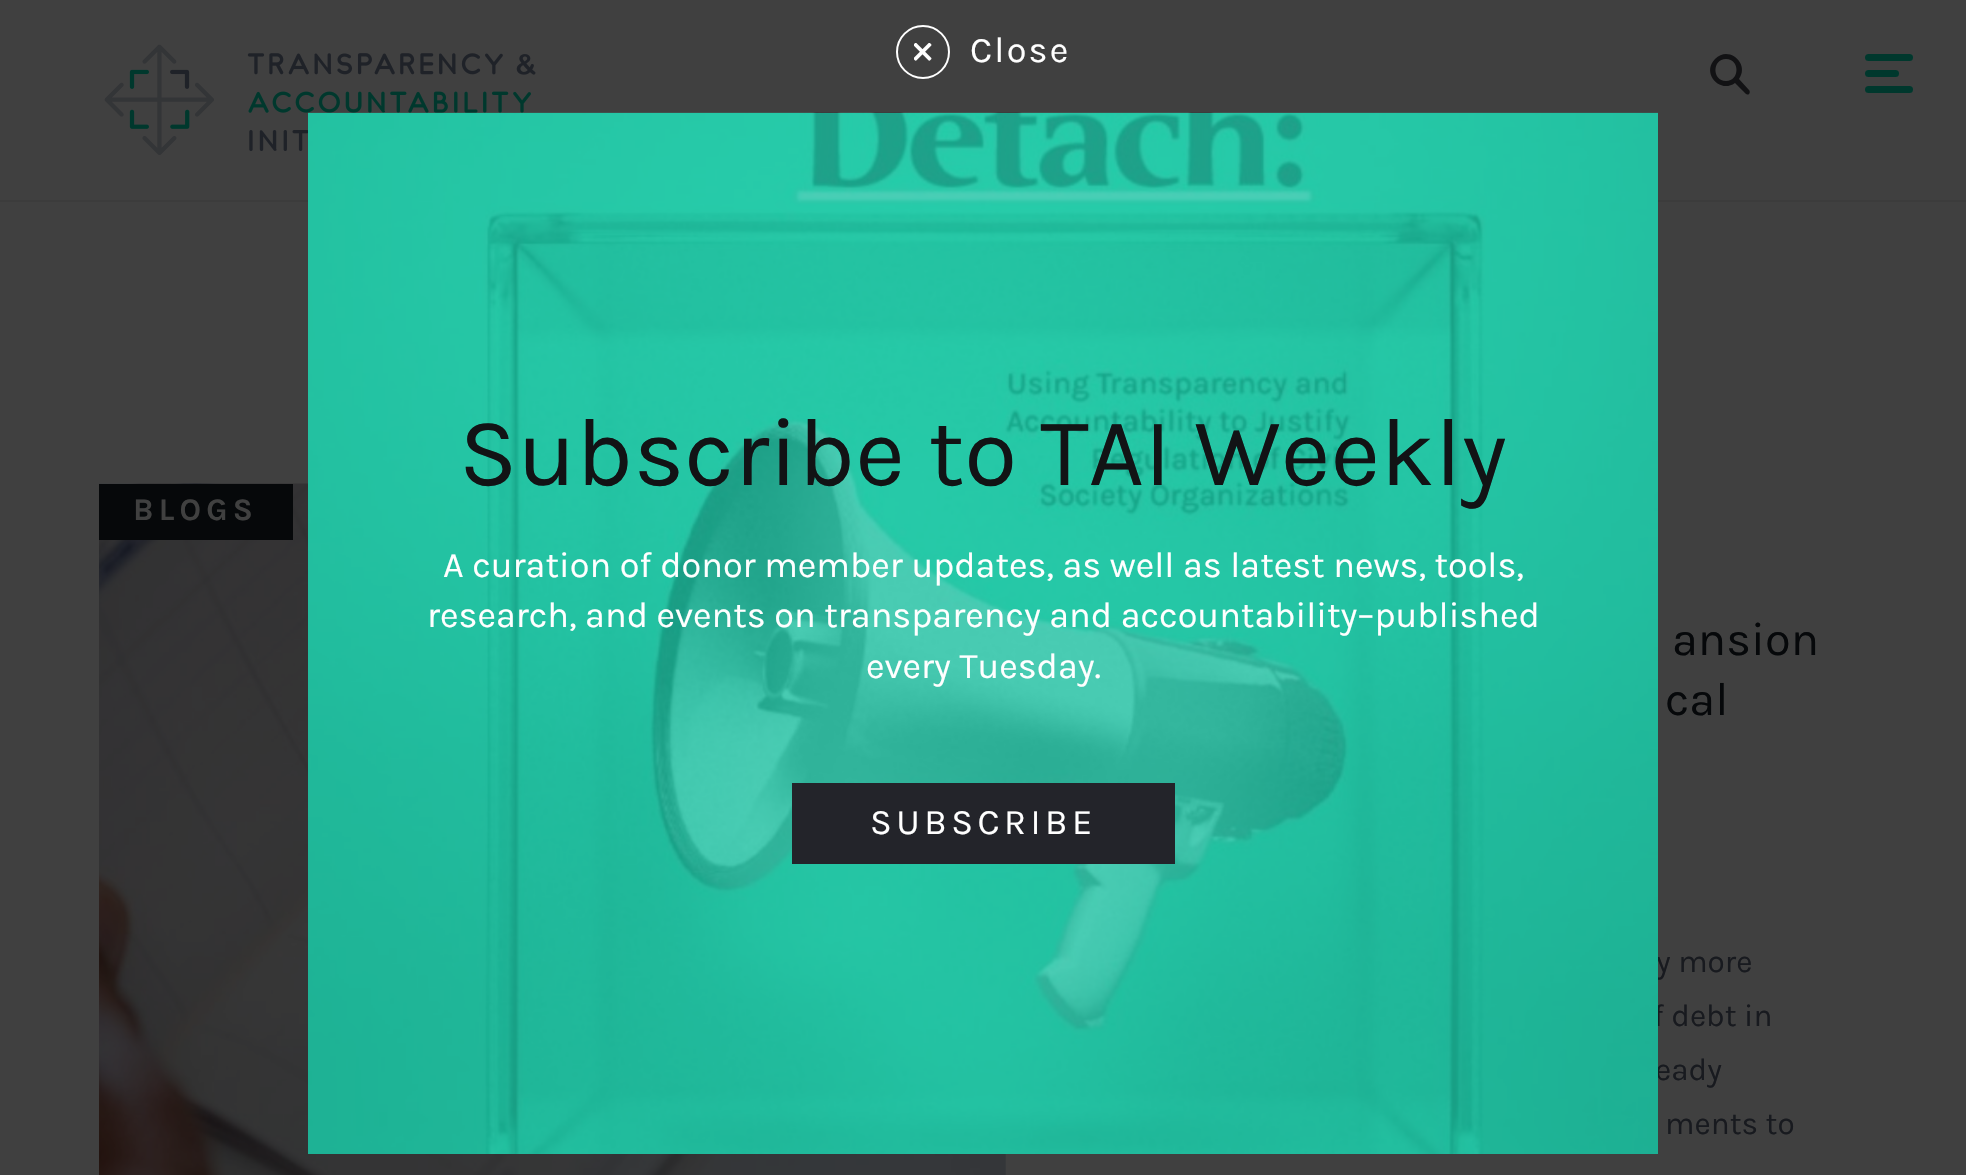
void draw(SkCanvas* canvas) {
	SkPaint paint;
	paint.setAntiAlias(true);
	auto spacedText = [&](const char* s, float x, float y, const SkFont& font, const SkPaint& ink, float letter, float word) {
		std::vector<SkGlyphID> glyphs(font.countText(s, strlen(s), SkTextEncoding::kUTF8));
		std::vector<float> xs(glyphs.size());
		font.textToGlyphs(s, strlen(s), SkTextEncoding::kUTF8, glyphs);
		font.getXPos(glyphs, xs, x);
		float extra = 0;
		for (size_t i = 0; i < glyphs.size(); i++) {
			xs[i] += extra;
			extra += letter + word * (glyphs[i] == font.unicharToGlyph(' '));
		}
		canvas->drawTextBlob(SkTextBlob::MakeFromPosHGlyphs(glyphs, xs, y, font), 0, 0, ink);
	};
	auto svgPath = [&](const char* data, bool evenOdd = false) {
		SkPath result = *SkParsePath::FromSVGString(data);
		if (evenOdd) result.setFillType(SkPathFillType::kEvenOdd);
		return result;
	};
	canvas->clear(0xff404040);
	paint.setStroke(true);
	paint.setStrokeWidth(2);
	paint.setColor(0xffffffff);
	canvas->drawCircle(923, 52, 26, paint);
	canvas->drawImageRect(SkImages::DeferredFromEncodedData(SkData::MakeFromFileName("img1.png")), SkRect::MakeXYWH(914, 43, 18, 18), SkSamplingOptions());
	SkFont f1(fontMgr->matchFamilyStyle("Karla", SkFontStyle::Normal()), 36);
	f1.setSubpixel(true);
	paint.setStroke(false);
	spacedText("Close", 970, 62, f1, paint, 2.25, 0);
	paint.setColor(0xff3c3c3c);
	canvas->drawRect(SkRect::MakeXYWH(0, 200, 1966, 2), paint);
	canvas->drawImageRect(SkImages::DeferredFromEncodedData(SkData::MakeFromFileName("img3.png")), SkRect::MakeXYWH(104, 44, 432, 111), SkSamplingOptions());
	canvas->drawImageRect(SkImages::DeferredFromEncodedData(SkData::MakeFromFileName("img4.png")), SkRect::MakeXYWH(99, 483, 907, 692), SkSamplingOptions());
	SkFont f2(fontMgr->matchFamilyStyle("Karla", SkFontStyle::Normal()), 31.5);
	f2.setSubpixel(true);
	paint.setColor(0xff181a1f);
	canvas->drawString("y more", 1656, 972, f2, paint);
	canvas->drawString("f debt in", 1653, 1026, f2, paint);
	canvas->drawString("eady", 1655, 1080, f2, paint);
	paint.setColor(0xff1dc2a3);
	canvas->drawRect(SkRect::MakeXYWH(308, 113, 1350, 1041), paint);
	canvas->drawImageRect(SkImages::DeferredFromEncodedData(SkData::MakeFromFileName("img2.png")), SkRect::MakeXYWH(308, 112, 1350, 1042), SkSamplingOptions());
	SkFont f3(fontMgr->matchFamilyStyle("Karla", SkFontStyle::Normal()), 96.75);
	f3.setSubpixel(true);
	paint.setColor(0xff121315);
	canvas->drawString("Subscribe to TAI Weekly", 459, 485, f3, paint);
	paint.setColor(0xffffffff);
	canvas->drawString("A curation of donor member updates, as well as latest news, tools,", 443, 577, f1, paint);
	canvas->drawString("research, and events on transparency and accountability–published", 427, 627, f1, paint);
	canvas->drawString("every Tuesday.", 866, 678, f1, paint);
	paint.setColor(0xff23242a);
	canvas->drawRect(SkRect::MakeXYWH(792, 783, 383, 81), paint);
	paint.setColor(0xffffffff);
	spacedText("SUBSCRIBE", 870, 834, f1, paint, 4.5, 0);
	paint.setColor(0xff121214);
	canvas->drawPath(svgPath("M1739 79C1750 64 1729 45 1715 59C1701 73 1720 94 1735 83L1744 92C1749 98 1751 92 1749 90ZM1726 81C1712 81 1712 59 1726 59C1740 59 1740 81 1726 81Z"), paint);
	paint.setColor(0xff00382d);
	canvas->drawRoundRect(SkRect::MakeXYWH(1865, 54, 48, 7), 3.5, 3.5, paint);
	canvas->drawRoundRect(SkRect::MakeXYWH(1865, 70, 34, 7), 3.5, 3.5, paint);
	canvas->drawRoundRect(SkRect::MakeXYWH(1865, 86, 48, 7), 3.5, 3.5, paint);
	paint.setColor(0xff06080a);
	canvas->drawRect(SkRect::MakeXYWH(99, 484, 194, 56), paint);
	SkFont f4(fontMgr->matchFamilyStyle("Karla", SkFontStyle::Bold()), 31.5);
	f4.setSubpixel(true);
	paint.setColor(0xff404040);
	spacedText("BLOGS", 133, 520, f4, paint, 5.25, 0);
	SkFont f5(fontMgr->matchFamilyStyle("Karla", SkFontStyle::Normal()), 47);
	f5.setSubpixel(true);
	paint.setColor(0xff06080a);
	canvas->drawString("ansion", 1672, 655, f5, paint);
	canvas->drawString("cal", 1665, 715, f5, paint);
	paint.setColor(0xff181a1f);
	canvas->drawString("ments to", 1665, 1134, f2, paint);
}
